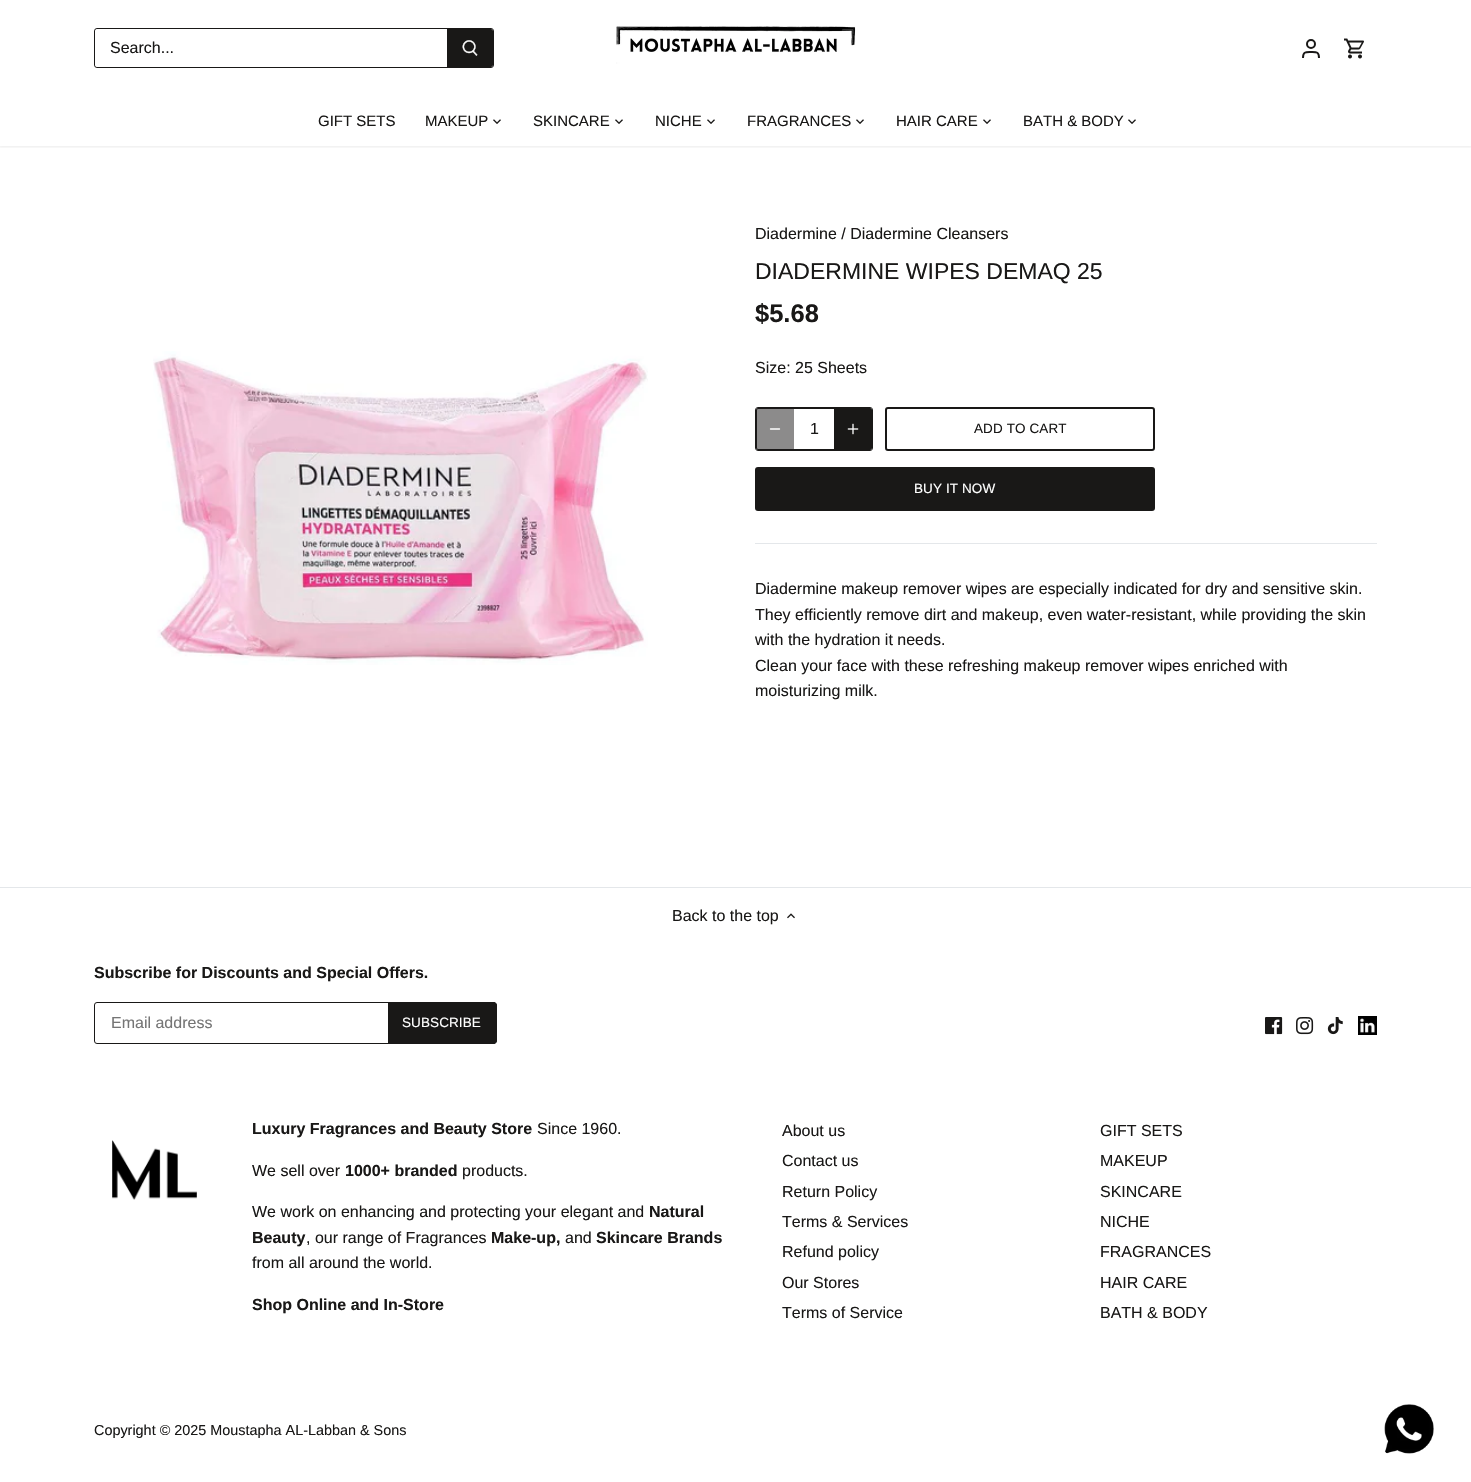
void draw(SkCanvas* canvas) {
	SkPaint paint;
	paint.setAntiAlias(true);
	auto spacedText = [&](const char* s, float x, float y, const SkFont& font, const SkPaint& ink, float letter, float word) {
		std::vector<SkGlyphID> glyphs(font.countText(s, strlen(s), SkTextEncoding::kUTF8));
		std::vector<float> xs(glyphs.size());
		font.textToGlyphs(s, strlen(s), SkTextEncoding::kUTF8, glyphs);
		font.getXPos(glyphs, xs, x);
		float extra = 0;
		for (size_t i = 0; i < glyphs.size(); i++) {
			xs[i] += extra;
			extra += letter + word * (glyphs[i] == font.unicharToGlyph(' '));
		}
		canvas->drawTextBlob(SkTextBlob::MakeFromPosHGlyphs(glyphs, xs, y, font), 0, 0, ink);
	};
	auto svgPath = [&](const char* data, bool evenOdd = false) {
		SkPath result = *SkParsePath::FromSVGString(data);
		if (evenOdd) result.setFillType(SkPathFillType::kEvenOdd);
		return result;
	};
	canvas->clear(0xffffffff);
	canvas->save();
	canvas->clipRect(SkRect::MakeXYWH(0, 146, 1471, 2));
	paint.setColor(0x14000000);
	paint.setMaskFilter(SkMaskFilter::MakeBlur(kNormal_SkBlurStyle, 1.5));
	canvas->drawRect(SkRect::MakeXYWH(-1, -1, 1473, 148), paint);
	paint.setMaskFilter(nullptr);
	canvas->restore();
	paint.setStroke(true);
	paint.setStrokeWidth(1);
	paint.setColor(0xff191817);
	canvas->drawRoundRect(SkRect::MakeXYWH(94.5, 28.5, 399, 39), 2.5, 2.5, paint);
	paint.setStroke(false);
	paint.setColor(0xffffffff);
	canvas->drawPath(svgPath("M98 29H448V67H98C96.5 67 95 65.5 95 64V32C95 30.5 96.5 29 98 29Z"), paint);
	SkFont f1(fontMgr->matchFamilyStyle("Liberation Sans", SkFontStyle::Normal()), 16);
	f1.setSubpixel(true);
	paint.setColor(0xff191817);
	canvas->drawString("Search...", 110, 53, f1, paint);
	canvas->drawPath(svgPath("M447 29H491C492 29 493 30 493 31V65C493 66 492 67 491 67H447Z"), paint);
	canvas->drawImageRect(SkImages::DeferredFromEncodedData(SkData::MakeFromFileName("img1.png")), SkRect::MakeXYWH(462, 40, 16, 16), SkSamplingOptions());
	canvas->drawImageRect(SkImages::DeferredFromEncodedData(SkData::MakeFromFileName("img2.png")), SkRect::MakeXYWH(616, 26, 240, 38), SkSamplingOptions());
	paint.setStroke(true);
	paint.setStrokeWidth(2);
	canvas->drawCircle(1311, 44, 4, paint);
	canvas->drawPath(svgPath("M1319 58C1319 51.5 1316.5 52 1311 52C1305.5 52 1303 51.5 1303 58"), paint);
	canvas->drawImageRect(SkImages::DeferredFromEncodedData(SkData::MakeFromFileName("img3.png")), SkRect::MakeXYWH(1344, 38, 20, 21), SkSamplingOptions());
	SkFont f2(fontMgr->matchFamilyStyle("Liberation Sans", SkFontStyle::Normal()), 15);
	f2.setSubpixel(true);
	paint.setStroke(false);
	canvas->drawString("GIFT SETS", 318, 126, f2, paint);
	canvas->drawString("MAKEUP", 425, 126, f2, paint);
	canvas->drawImageRect(SkImages::DeferredFromEncodedData(SkData::MakeFromFileName("img4.png")), SkRect::MakeXYWH(493, 119, 8, 5), SkSamplingOptions());
	canvas->drawString("SKINCARE", 533, 126, f2, paint);
	canvas->drawImageRect(SkImages::DeferredFromEncodedData(SkData::MakeFromFileName("img4.png")), SkRect::MakeXYWH(615, 119, 8, 5), SkSamplingOptions());
	canvas->drawString("NICHE", 655, 126, f2, paint);
	canvas->drawImageRect(SkImages::DeferredFromEncodedData(SkData::MakeFromFileName("img4.png")), SkRect::MakeXYWH(707, 119, 8, 5), SkSamplingOptions());
	canvas->drawString("FRAGRANCES", 747, 126, f2, paint);
	canvas->drawImageRect(SkImages::DeferredFromEncodedData(SkData::MakeFromFileName("img4.png")), SkRect::MakeXYWH(856, 119, 8, 5), SkSamplingOptions());
	canvas->drawString("HAIR CARE", 896, 126, f2, paint);
	canvas->drawImageRect(SkImages::DeferredFromEncodedData(SkData::MakeFromFileName("img4.png")), SkRect::MakeXYWH(983, 119, 8, 5), SkSamplingOptions());
	canvas->drawString("BATH & BODY", 1023, 126, f2, paint);
	canvas->drawImageRect(SkImages::DeferredFromEncodedData(SkData::MakeFromFileName("img4.png")), SkRect::MakeXYWH(1128, 119, 8, 5), SkSamplingOptions());
	canvas->drawImageRect(SkImages::DeferredFromEncodedData(SkData::MakeFromFileName("img5.png")), SkRect::MakeXYWH(153, 351, 495, 314), SkSamplingOptions());
	canvas->drawString("Diadermine / Diadermine Cleansers", 755, 239, f1, paint);
	SkFont f3(fontMgr->matchFamilyStyle("Liberation Sans", SkFontStyle::Normal()), 23);
	f3.setSubpixel(true);
	canvas->drawString("DIADERMINE WIPES DEMAQ 25", 755, 279, f3, paint);
	SkFont f4(fontMgr->matchFamilyStyle("Liberation Sans", SkFontStyle::Bold()), 25.5);
	f4.setSubpixel(true);
	canvas->drawString("$5.68", 755, 322, f4, paint);
	canvas->drawString("Size: 25 Sheets", 755, 373, f1, paint);
	paint.setStroke(true);
	paint.setStrokeWidth(1);
	canvas->drawRoundRect(SkRect::MakeXYWH(756.5, 408.5, 115, 41), 1.5, 1.5, paint);
	canvas->drawRoundRect(SkRect::MakeXYWH(755.5, 407.5, 117, 43), 2.5, 2.5, paint);
	paint.setStroke(false);
	paint.setColor(0x80191817);
	canvas->drawPath(svgPath("M759 408H794V450H759C757.5 450 756 448.5 756 447V411C756 409.5 757.5 408 759 408Z"), paint);
	paint.setStroke(true);
	paint.setStrokeWidth(1.3);
	paint.setStrokeCap(SkPaint::kRound_Cap);
	paint.setStrokeJoin(SkPaint::kRound_Join);
	paint.setColor(0xffffffff);
	canvas->drawPath(svgPath("M770.5 429H779.5"), paint);
	paint.setStroke(false);
	paint.setColor(0xff191817);
	canvas->drawString("1", 810, 434, f1, paint);
	canvas->save();
	canvas->clipPath(svgPath("M758 408H870C871 408 872 409 872 410V448C872 449 871 450 870 450H758C757 450 756 449 756 448V410C756 409 757 408 758 408Z"), true);
	canvas->drawPath(svgPath("M834 408H869C870.5 408 872 409.5 872 411V447C872 448.5 870.5 450 869 450H834Z"), paint);
	canvas->restore();
	canvas->drawImageRect(SkImages::DeferredFromEncodedData(SkData::MakeFromFileName("img6.png")), SkRect::MakeXYWH(847, 423, 12, 12), SkSamplingOptions());
	paint.setStroke(true);
	paint.setStrokeWidth(2);
	paint.setStrokeCap(SkPaint::kButt_Cap);
	paint.setStrokeJoin(SkPaint::kMiter_Join);
	canvas->drawRoundRect(SkRect::MakeXYWH(886, 408, 268, 42), 2, 2, paint);
	SkFont f5(fontMgr->matchFamilyStyle("Liberation Sans", SkFontStyle::Normal()), 13.5);
	f5.setSubpixel(true);
	paint.setStroke(false);
	spacedText("ADD TO CART", 974, 433, f5, paint, 0.1, 0);
	canvas->drawRoundRect(SkRect::MakeXYWH(755, 467, 400, 44), 3, 3, paint);
	paint.setColor(0xffffffff);
	spacedText("BUY IT NOW", 914, 493, f5, paint, 0.1, 0);
	paint.setColor(0xffe4e7ea);
	canvas->drawRect(SkRect::MakeXYWH(755, 543, 622, 1), paint);
	paint.setColor(0xff191817);
	canvas->drawString("Diadermine makeup remover wipes are especially indicated for dry and sensitive skin.", 755, 594, f1, paint);
	canvas->drawString("They efficiently remove dirt and makeup, even water-resistant, while providing the skin", 755, 620, f1, paint);
	canvas->drawString("with the hydration it needs.", 755, 645, f1, paint);
	canvas->drawString("Clean your face with these refreshing makeup remover wipes enriched with", 755, 671, f1, paint);
	canvas->drawString("moisturizing milk.", 755, 696, f1, paint);
	paint.setColor(0xffe4e7ea);
	canvas->drawRect(SkRect::MakeXYWH(0, 887, 1471, 1), paint);
	paint.setColor(0xff191817);
	canvas->drawString("Back to the top", 672, 921, f1, paint);
	canvas->drawImageRect(SkImages::DeferredFromEncodedData(SkData::MakeFromFileName("img7.png")), SkRect::MakeXYWH(787, 913, 8, 6), SkSamplingOptions());
	SkFont f6(fontMgr->matchFamilyStyle("Liberation Sans", SkFontStyle::Bold()), 16);
	f6.setSubpixel(true);
	canvas->drawString("Subscribe for Discounts and Special Offers.", 94, 978, f6, paint);
	paint.setStroke(true);
	paint.setStrokeWidth(1);
	canvas->drawRoundRect(SkRect::MakeXYWH(94.5, 1002.5, 401, 41), 2.5, 2.5, paint);
	paint.setStroke(false);
	paint.setColor(0xff757575);
	canvas->drawString("Email address", 111, 1028, f1, paint);
	paint.setColor(0xff191817);
	canvas->drawPath(svgPath("M388.5 1002.5H494C495.5 1002.5 496.5 1003.5 496.5 1005V1041C496.5 1042.5 495.5 1043.5 494 1043.5H388.5Z"), paint);
	paint.setStroke(true);
	canvas->drawPath(svgPath("M388.5 1002.5H494C495.5 1002.5 496.5 1003.5 496.5 1005V1041C496.5 1042.5 495.5 1043.5 494 1043.5H388.5Z"), paint);
	paint.setStroke(false);
	paint.setColor(0xffffffff);
	spacedText("SUBSCRIBE", 402, 1027, f5, paint, 0.1, 0);
	canvas->drawImageRect(SkImages::DeferredFromEncodedData(SkData::MakeFromFileName("img8.png")), SkRect::MakeXYWH(1265, 1017, 18, 18), SkSamplingOptions());
	canvas->drawImageRect(SkImages::DeferredFromEncodedData(SkData::MakeFromFileName("img9.png")), SkRect::MakeXYWH(1296, 1017, 18, 18), SkSamplingOptions());
	canvas->drawImageRect(SkImages::DeferredFromEncodedData(SkData::MakeFromFileName("img10.png")), SkRect::MakeXYWH(1327, 1017, 16, 18), SkSamplingOptions());
	canvas->drawImageRect(SkImages::DeferredFromEncodedData(SkData::MakeFromFileName("img11.png")), SkRect::MakeXYWH(1358, 1016, 19, 19), SkSamplingOptions());
	canvas->drawImageRect(SkImages::DeferredFromEncodedData(SkData::MakeFromFileName("img12.png")), SkRect::MakeXYWH(112, 1140, 85, 60), SkSamplingOptions());
	paint.setColor(0xff191817);
	canvas->drawString("Luxury Fragrances and Beauty Store", 252, 1134, f6, paint);
	canvas->drawString("Since 1960.", 537, 1134, f1, paint);
	canvas->drawString("We sell over", 252, 1176, f1, paint);
	canvas->drawString("1000+ branded", 345, 1176, f6, paint);
	canvas->drawString("products.", 462, 1176, f1, paint);
	canvas->drawString("We work on enhancing and protecting your elegant and", 252, 1217, f1, paint);
	canvas->drawString("Natural", 649, 1217, f6, paint);
	canvas->drawString("Beauty", 252, 1243, f6, paint);
	canvas->drawString(", our range of Fragrances", 306, 1243, f1, paint);
	canvas->drawString("Make-up,", 491, 1243, f6, paint);
	canvas->drawString("and", 565, 1243, f1, paint);
	canvas->drawString("Skincare Brands", 596, 1243, f6, paint);
	canvas->drawString("from all around the world.", 252, 1268, f1, paint);
	canvas->drawString("Shop Online and In-Store", 252, 1310, f6, paint);
	canvas->drawString("About us", 782, 1136, f1, paint);
	canvas->drawString("Contact us", 782, 1166, f1, paint);
	canvas->drawString("Return Policy", 782, 1197, f1, paint);
	canvas->drawString("Terms & Services", 782, 1227, f1, paint);
	canvas->drawString("Refund policy", 782, 1257, f1, paint);
	canvas->drawString("Our Stores", 782, 1288, f1, paint);
	canvas->drawString("Terms of Service", 782, 1318, f1, paint);
	canvas->drawString("GIFT SETS", 1100, 1136, f1, paint);
	canvas->drawString("MAKEUP", 1100, 1166, f1, paint);
	canvas->drawString("SKINCARE", 1100, 1197, f1, paint);
	canvas->drawString("NICHE", 1100, 1227, f1, paint);
	canvas->drawString("FRAGRANCES", 1100, 1257, f1, paint);
	canvas->drawString("HAIR CARE", 1100, 1288, f1, paint);
	canvas->drawString("BATH & BODY", 1100, 1318, f1, paint);
	SkFont f7(fontMgr->matchFamilyStyle("Liberation Sans", SkFontStyle::Normal()), 14.4);
	f7.setSubpixel(true);
	canvas->drawString("Copyright © 2025 Moustapha AL-Labban & Sons", 94, 1435, f7, paint);
	canvas->drawImageRect(SkImages::DeferredFromEncodedData(SkData::MakeFromFileName("img13.png")), SkRect::MakeXYWH(1384, 1404, 50, 50), SkSamplingOptions());
}
